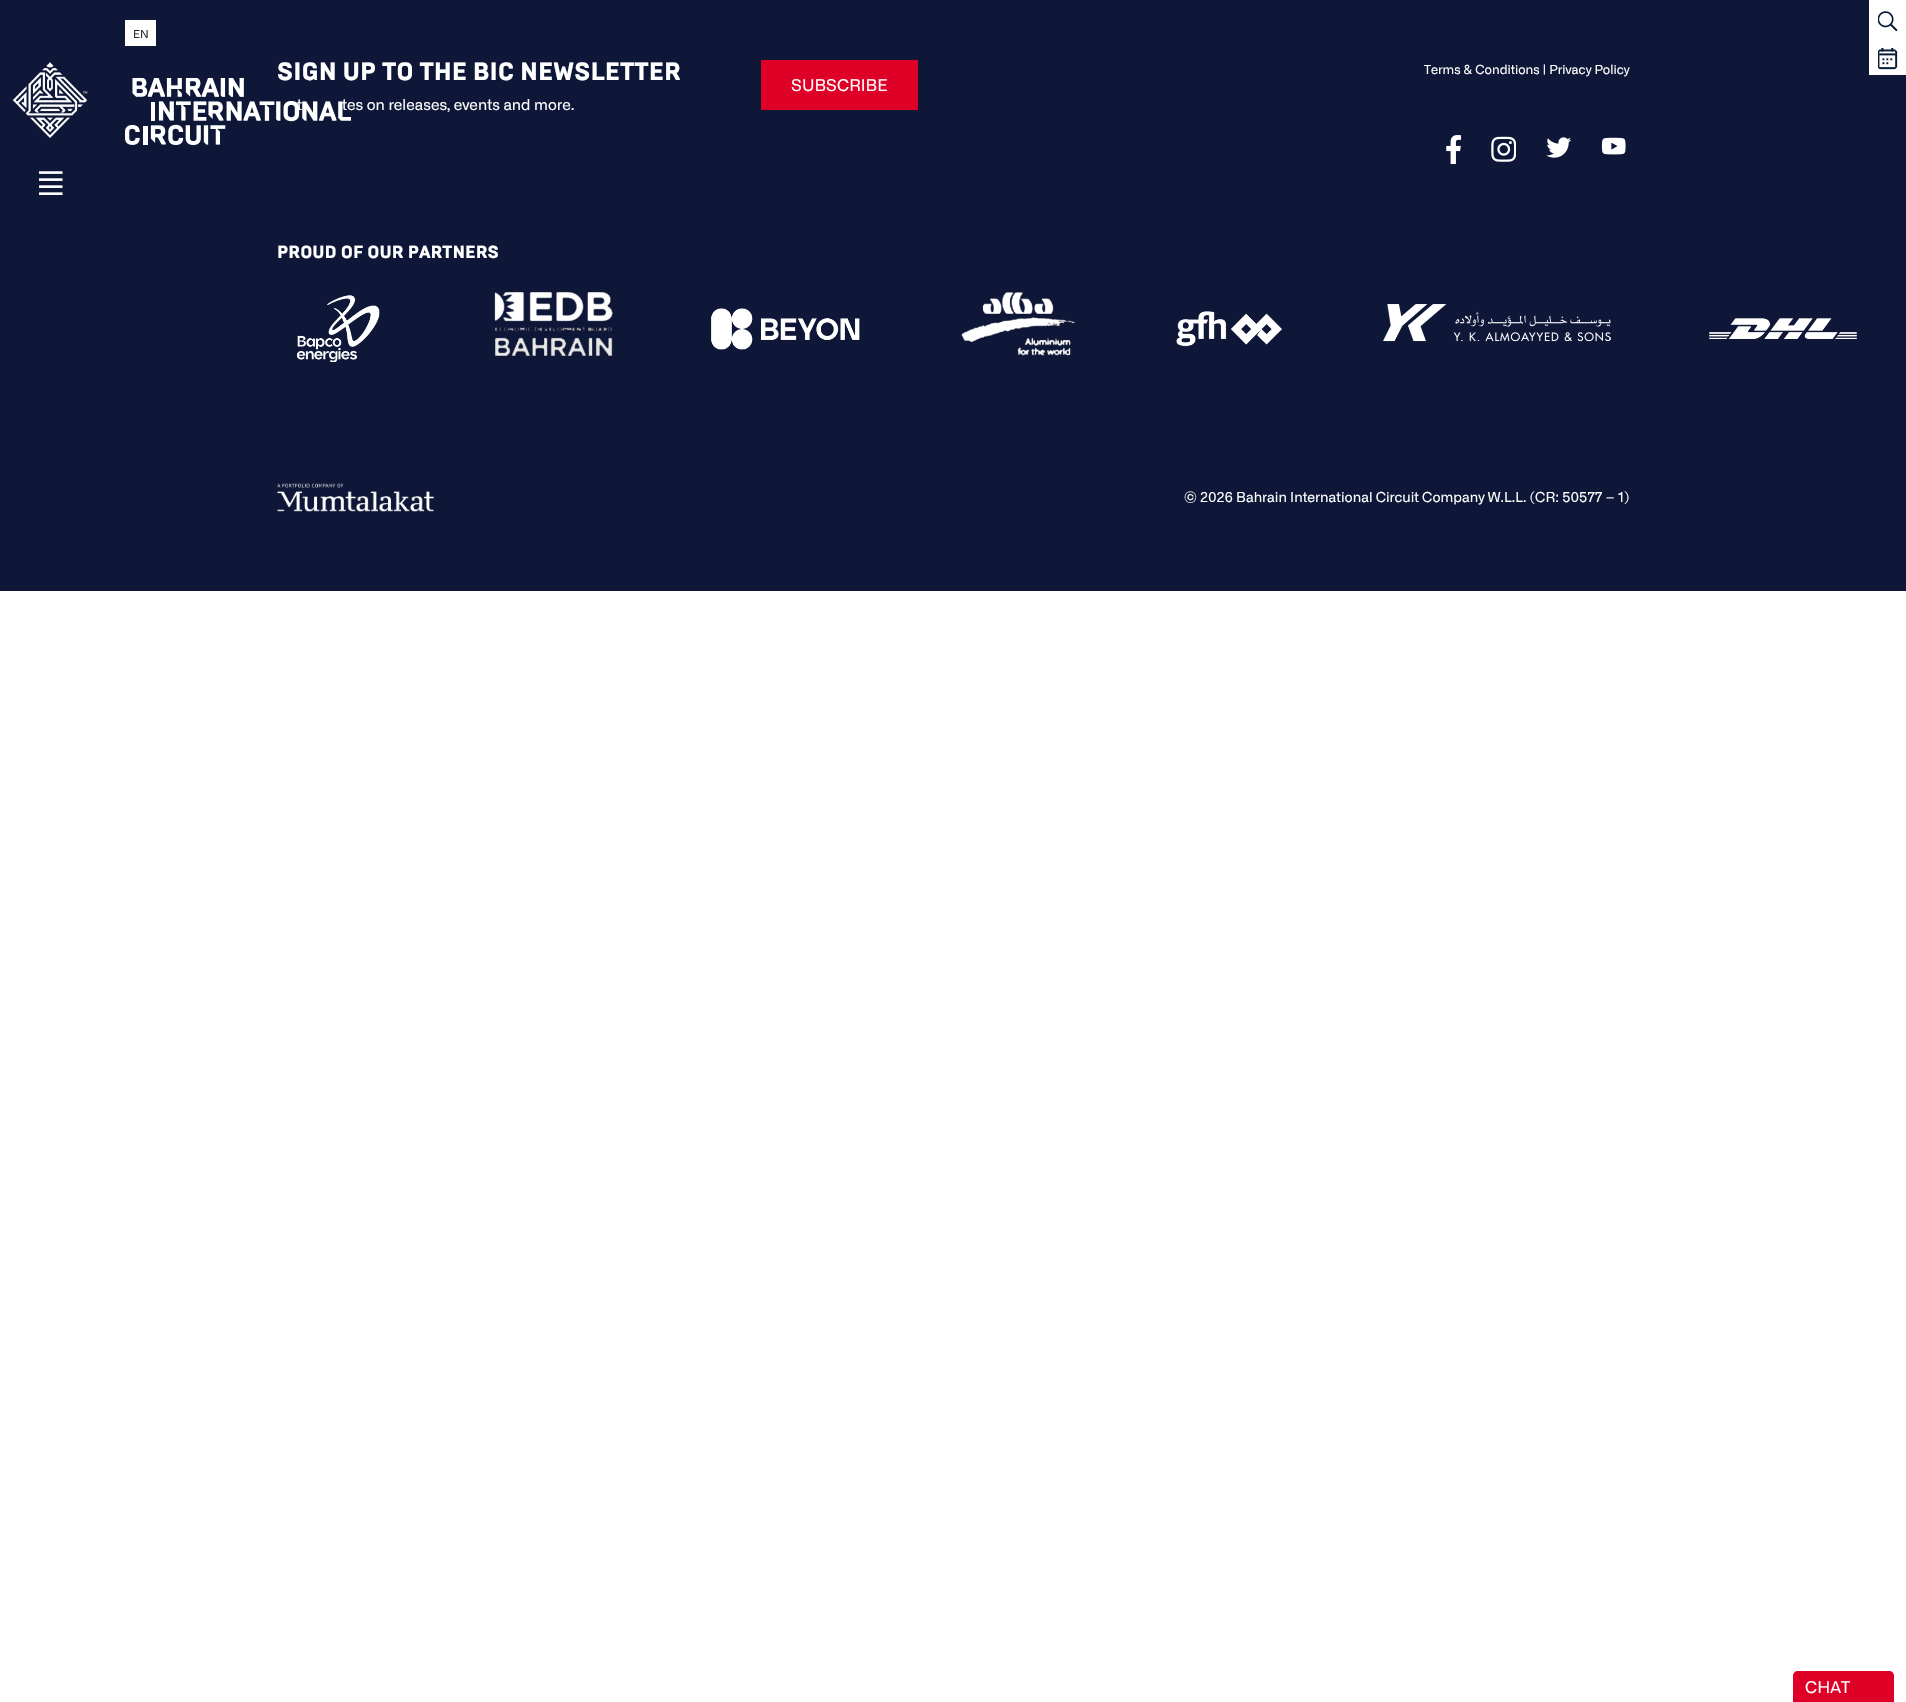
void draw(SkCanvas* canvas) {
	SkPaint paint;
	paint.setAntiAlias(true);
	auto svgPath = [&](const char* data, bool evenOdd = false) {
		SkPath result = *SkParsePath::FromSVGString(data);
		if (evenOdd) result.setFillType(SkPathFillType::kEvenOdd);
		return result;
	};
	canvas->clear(0xffffffff);
	paint.setColor(0xff0f1738);
	canvas->drawRect(SkRect::MakeXYWH(0, 0, 1906, 591), paint);
	paint.setStroke(true);
	paint.setStrokeWidth(1);
	paint.setColor(0xffffffff);
	canvas->drawRect(SkRect::MakeXYWH(125.5, 20.5, 30, 25), paint);
	paint.setStroke(false);
	canvas->drawRect(SkRect::MakeXYWH(126, 21, 29, 24), paint);
	SkFont f1(fontMgr->matchFamilyStyle("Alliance", SkFontStyle::Normal()), 11);
	f1.setSubpixel(true);
	paint.setColor(0xff2b2b2b);
	canvas->drawString("EN", 133, 38, f1, paint);
	SkFont f2(fontMgr->matchFamilyStyle("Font", SkFontStyle::Normal()), 25);
	f2.setSubpixel(true);
	paint.setColor(0xffffffff);
	canvas->drawString("Sign up to the BIC newsletter", 277, 80, f2, paint);
	SkFont f3(fontMgr->matchFamilyStyle("Alliance", SkFontStyle::Normal()), 15);
	f3.setSubpixel(true);
	canvas->drawString("t", 297, 110, f3, paint);
	canvas->drawString("tes on releases, events and more.", 342, 110, f3, paint);
	canvas->drawImageRect(SkImages::DeferredFromEncodedData(SkData::MakeFromFileName("img1.png")), SkRect::MakeXYWH(125, 78, 226, 67), SkSamplingOptions());
	canvas->drawRect(SkRect::MakeXYWH(1869, 0, 37, 75), paint);
	canvas->drawImageRect(SkImages::DeferredFromEncodedData(SkData::MakeFromFileName("img2.png")), SkRect::MakeXYWH(1878, 11, 20, 20), SkSamplingOptions());
	canvas->drawImageRect(SkImages::DeferredFromEncodedData(SkData::MakeFromFileName("img3.png")), SkRect::MakeXYWH(1878, 48, 20, 22), SkSamplingOptions());
	canvas->drawImageRect(SkImages::DeferredFromEncodedData(SkData::MakeFromFileName("img4.png")), SkRect::MakeXYWH(12, 62, 76, 76), SkSamplingOptions());
	canvas->drawImageRect(SkImages::DeferredFromEncodedData(SkData::MakeFromFileName("img5.png")), SkRect::MakeXYWH(39, 171, 24, 24), SkSamplingOptions());
	paint.setColor(0xffde0026);
	canvas->drawRect(SkRect::MakeXYWH(761, 60, 157, 50), paint);
	SkFont f4(fontMgr->matchFamilyStyle("Alliance", SkFontStyle::Normal()), 16.25);
	f4.setSubpixel(true);
	paint.setColor(0xffffffff);
	canvas->drawString("SUBSCRIBE", 791, 91, f4, paint);
	SkFont f5(fontMgr->matchFamilyStyle("Alliance", SkFontStyle::Normal()), 12.5);
	f5.setSubpixel(true);
	canvas->drawString("Terms & Conditions | Privacy Policy", 1424, 74, f5, paint);
	canvas->drawImageRect(SkImages::DeferredFromEncodedData(SkData::MakeFromFileName("img6.png")), SkRect::MakeXYWH(1446, 135, 15, 29), SkSamplingOptions());
	canvas->drawImageRect(SkImages::DeferredFromEncodedData(SkData::MakeFromFileName("img7.png")), SkRect::MakeXYWH(1491, 136, 25, 26), SkSamplingOptions());
	canvas->drawImageRect(SkImages::DeferredFromEncodedData(SkData::MakeFromFileName("img8.png")), SkRect::MakeXYWH(1546, 137, 25, 21), SkSamplingOptions());
	canvas->drawImageRect(SkImages::DeferredFromEncodedData(SkData::MakeFromFileName("img9.png")), SkRect::MakeXYWH(1601, 137, 25, 18), SkSamplingOptions());
	SkFont f6(fontMgr->matchFamilyStyle("Font", SkFontStyle::Normal()), 17.5);
	f6.setSubpixel(true);
	canvas->drawString("Proud of our partners", 277, 258, f6, paint);
	canvas->drawImageRect(SkImages::DeferredFromEncodedData(SkData::MakeFromFileName("img10.png")), SkRect::MakeXYWH(297, 295, 83, 67), SkSamplingOptions());
	canvas->drawImageRect(SkImages::DeferredFromEncodedData(SkData::MakeFromFileName("img11.png")), SkRect::MakeXYWH(494, 292, 119, 64), SkSamplingOptions());
	canvas->drawImageRect(SkImages::DeferredFromEncodedData(SkData::MakeFromFileName("img12.png")), SkRect::MakeXYWH(711, 308, 149, 42), SkSamplingOptions());
	canvas->drawImageRect(SkImages::DeferredFromEncodedData(SkData::MakeFromFileName("img13.png")), SkRect::MakeXYWH(961, 292, 114, 64), SkSamplingOptions());
	canvas->drawImageRect(SkImages::DeferredFromEncodedData(SkData::MakeFromFileName("img14.png")), SkRect::MakeXYWH(1176, 311, 106, 36), SkSamplingOptions());
	canvas->drawImageRect(SkImages::DeferredFromEncodedData(SkData::MakeFromFileName("img15.png")), SkRect::MakeXYWH(1383, 304, 228, 38), SkSamplingOptions());
	canvas->drawImageRect(SkImages::DeferredFromEncodedData(SkData::MakeFromFileName("img16.png")), SkRect::MakeXYWH(1709, 318, 148, 21), SkSamplingOptions());
	canvas->drawImageRect(SkImages::DeferredFromEncodedData(SkData::MakeFromFileName("img17.png")), SkRect::MakeXYWH(277, 483, 157, 29), SkSamplingOptions());
	SkFont f7(fontMgr->matchFamilyStyle("Alliance", SkFontStyle::Normal()), 13.75);
	f7.setSubpixel(true);
	canvas->drawString("© 2026 Bahrain International Circuit Company W.L.L. (CR: 50577 – 1)", 1184, 502, f7, paint);
	paint.setColor(0xffde0026);
	canvas->drawPath(svgPath("M1798 1671H1889C1892 1671 1894 1673 1894 1676V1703H1793V1676C1793 1673 1795 1671 1798 1671Z"), paint);
	paint.setColor(0xffffffff);
	canvas->drawString("CHAT", 1805, 1693, f4, paint);
}
